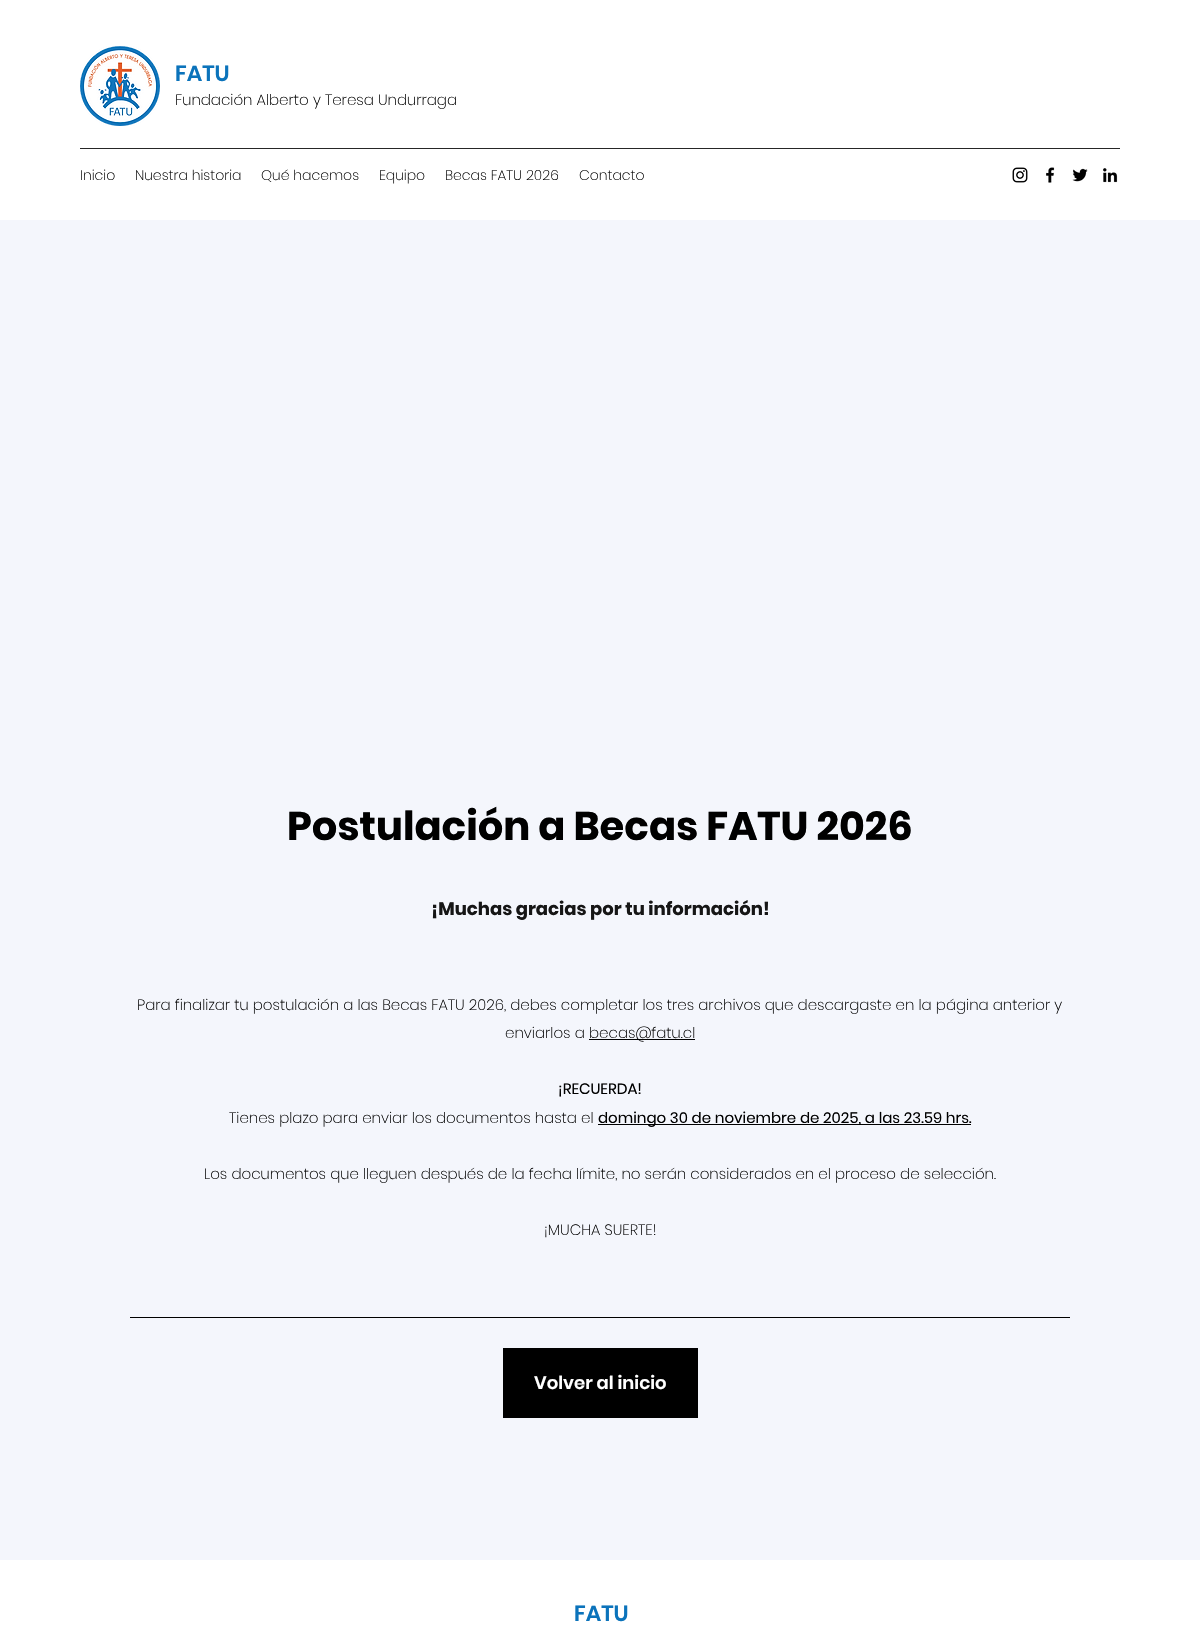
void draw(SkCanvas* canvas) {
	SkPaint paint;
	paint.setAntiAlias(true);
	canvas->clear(0xffffffff);
	canvas->drawImageRect(SkImages::DeferredFromEncodedData(SkData::MakeFromFileName("img1.png")), SkRect::MakeXYWH(80, 46, 80, 80), SkSamplingOptions());
	SkFont f1(fontMgr->matchFamilyStyle("Poppins", SkFontStyle(600, SkFontStyle::kNormal_Width, SkFontStyle::kUpright_Slant)), 22);
	f1.setSubpixel(true);
	paint.setColor(0xff0b73bb);
	canvas->drawString("FATU", 175, 81, f1, paint);
	SkFont f2(fontMgr->matchFamilyStyle("Poppins", SkFontStyle(200, SkFontStyle::kNormal_Width, SkFontStyle::kUpright_Slant)), 15);
	f2.setSubpixel(true);
	paint.setColor(0xff000000);
	canvas->drawString("Fundación Alberto y Teresa Undurraga", 175, 105, f2, paint);
	paint.setColor(0xff262626);
	canvas->drawRect(SkRect::MakeXYWH(80, 148, 1040, 1), paint);
	SkFont f3(fontMgr->matchFamilyStyle("Poppins", SkFontStyle(200, SkFontStyle::kNormal_Width, SkFontStyle::kUpright_Slant)), 14);
	f3.setSubpixel(true);
	paint.setColor(0xff000000);
	canvas->drawString("Inicio", 80, 180, f3, paint);
	canvas->drawString("Nuestra historia", 135, 180, f3, paint);
	canvas->drawString("Qué hacemos", 261, 180, f3, paint);
	canvas->drawString("Equipo", 379, 180, f3, paint);
	canvas->drawString("Becas FATU 2026", 445, 180, f3, paint);
	canvas->drawString("Contacto", 579, 180, f3, paint);
	canvas->drawImageRect(SkImages::DeferredFromEncodedData(SkData::MakeFromFileName("img2.png")), SkRect::MakeXYWH(1012, 167, 16, 16), SkSamplingOptions());
	canvas->drawImageRect(SkImages::DeferredFromEncodedData(SkData::MakeFromFileName("img3.png")), SkRect::MakeXYWH(1046, 167, 9, 16), SkSamplingOptions());
	canvas->drawImageRect(SkImages::DeferredFromEncodedData(SkData::MakeFromFileName("img4.png")), SkRect::MakeXYWH(1072, 168, 16, 14), SkSamplingOptions());
	canvas->drawImageRect(SkImages::DeferredFromEncodedData(SkData::MakeFromFileName("img5.png")), SkRect::MakeXYWH(1103, 168, 15, 15), SkSamplingOptions());
	paint.setColor(0xfff4f6fc);
	canvas->drawRect(SkRect::MakeXYWH(0, 220, 1200, 1340), paint);
	SkFont f4(fontMgr->matchFamilyStyle("Poppins", SkFontStyle::Bold()), 40);
	f4.setSubpixel(true);
	paint.setColor(0xff000000);
	canvas->drawString("Postulación a Becas FATU 2026", 287, 840, f4, paint);
	SkFont f5(fontMgr->matchFamilyStyle("Poppins", SkFontStyle::Bold()), 18);
	f5.setSubpixel(true);
	paint.setColor(0xff161616);
	canvas->drawString("¡Muchas gracias por tu información!", 431, 915, f5, paint);
	paint.setColor(0xff000000);
	canvas->drawString("Para finalizar tu postulación a las Becas FATU 2026, debes completar los tres archivos que descargaste en la página anterior y", 137, 1010, f2, paint);
	canvas->drawString("enviarlos a", 505, 1038, f2, paint);
	canvas->drawRect(SkRect::MakeXYWH(589, 1039, 106, 1), paint);
	canvas->drawString("becas@fatu.cl", 589, 1038, f2, paint);
	SkFont f6(fontMgr->matchFamilyStyle("Poppins", SkFontStyle::Normal()), 15);
	f6.setSubpixel(true);
	canvas->drawString("¡RECUERDA!", 558, 1094, f6, paint);
	canvas->drawString("Tienes plazo para enviar los documentos hasta el", 229, 1123, f2, paint);
	canvas->drawRect(SkRect::MakeXYWH(598, 1124, 373, 1), paint);
	canvas->drawString("domingo 30 de noviembre de 2025, a las 23.59 hrs.", 598, 1123, f6, paint);
	canvas->drawString("Los documentos que lleguen después de la fecha límite, no serán considerados en el proceso de selección.", 204, 1179, f2, paint);
	canvas->drawString("¡MUCHA SUERTE!", 544, 1235, f2, paint);
	canvas->drawRect(SkRect::MakeXYWH(130, 1317, 940, 1), paint);
	canvas->drawRect(SkRect::MakeXYWH(503, 1348, 195, 70), paint);
	SkFont f7(fontMgr->matchFamilyStyle("Poppins", SkFontStyle(600, SkFontStyle::kNormal_Width, SkFontStyle::kUpright_Slant)), 18);
	f7.setSubpixel(true);
	paint.setColor(0xffffffff);
	canvas->drawString("Volver al inicio", 534, 1389, f7, paint);
	paint.setColor(0xff0b73bb);
	canvas->drawString("FATU", 574, 1621, f1, paint);
}
